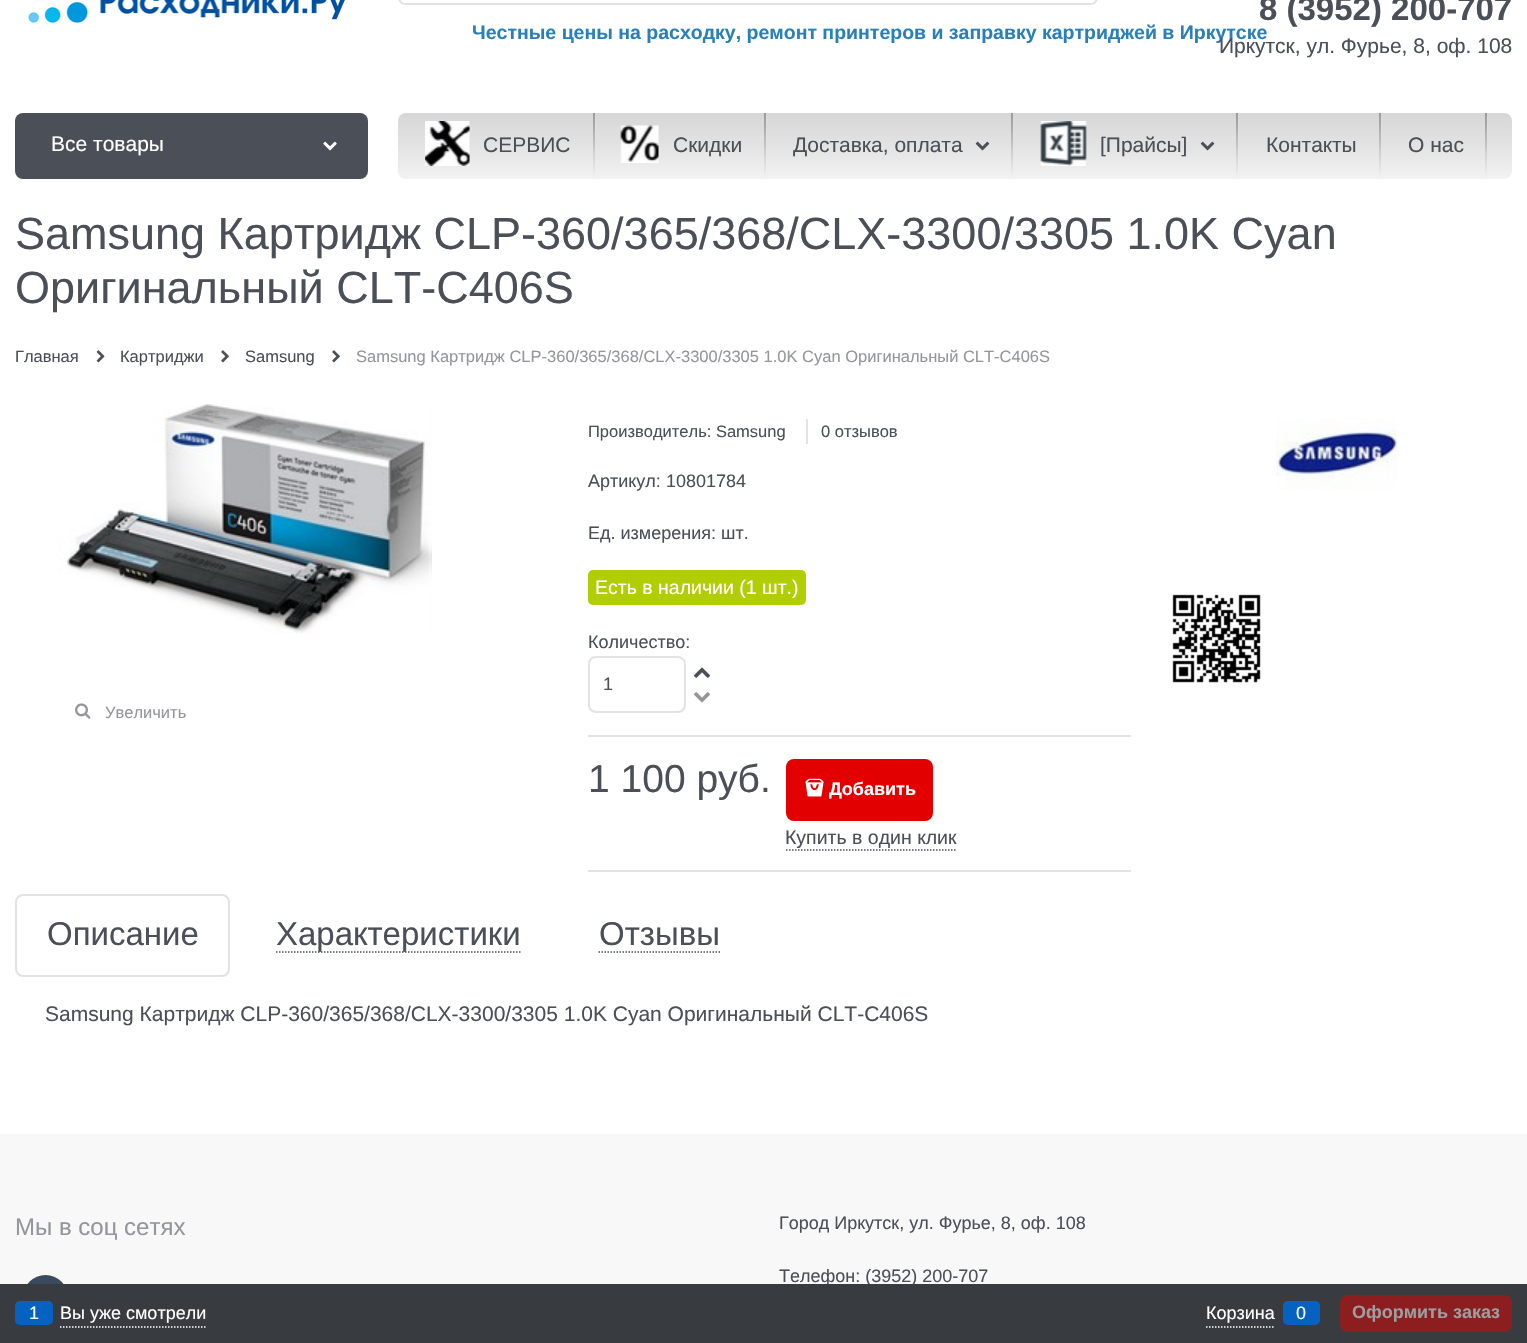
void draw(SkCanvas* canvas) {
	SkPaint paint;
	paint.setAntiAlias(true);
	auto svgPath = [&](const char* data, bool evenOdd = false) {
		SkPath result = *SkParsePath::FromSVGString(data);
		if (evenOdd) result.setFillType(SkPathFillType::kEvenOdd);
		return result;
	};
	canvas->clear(0xffffffff);
	canvas->drawImageRect(SkImages::DeferredFromEncodedData(SkData::MakeFromFileName("img1.png")), SkRect::MakeXYWH(28, 0, 318, 25), SkSamplingOptions());
	paint.setStroke(true);
	paint.setStrokeWidth(2);
	paint.setColor(0xffe2e3e4);
	canvas->drawRoundRect(SkRect::MakeXYWH(399, -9, 698, 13), 7, 7, paint);
	SkFont f1(fontMgr->matchFamilyStyle("Liberation Sans", SkFontStyle::Bold()), 19.5);
	f1.setSubpixel(true);
	paint.setStroke(false);
	paint.setColor(0xff2980b9);
	canvas->drawString("Честные цены на расходку, ремонт принтеров и заправку картриджей в Иркутске", 472, 39, f1, paint);
	SkFont f2(fontMgr->matchFamilyStyle("Liberation Sans", SkFontStyle::Bold()), 33);
	f2.setSubpixel(true);
	paint.setColor(0xff4b4f58);
	canvas->drawString("8 (3952) 200-707", 1259, 20, f2, paint);
	SkFont f3(fontMgr->matchFamilyStyle("Liberation Sans", SkFontStyle::Normal()), 21);
	f3.setSubpixel(true);
	canvas->drawString("Иркутск, ул. Фурье, 8, оф. 108", 1219, 53, f3, paint);
	canvas->drawRoundRect(SkRect::MakeXYWH(15, 113, 353, 66), 8, 8, paint);
	paint.setColor(0xffffffff);
	canvas->drawString("Все товары", 51, 151, f3, paint);
	canvas->drawImageRect(SkImages::DeferredFromEncodedData(SkData::MakeFromFileName("img2.png")), SkRect::MakeXYWH(323, 141, 14, 10), SkSamplingOptions());
	{
		const SkColor colors[] = {0xffd6d6d6, 0xffe3e3e3, 0xfff2f2f2};
		const float stops[] = {0, 0.5, 1};
		const SkPoint ends[] = {{955, 112}, {955, 179}};
		paint.setShader(SkGradientShader::MakeLinear(ends, colors, stops, 3, SkTileMode::kClamp));
		paint.setAlpha(255);
	}
	canvas->drawRoundRect(SkRect::MakeXYWH(398, 113, 1114, 66), 8, 8, paint);
	canvas->drawImageRect(SkImages::DeferredFromEncodedData(SkData::MakeFromFileName("img3.png")), SkRect::MakeXYWH(425, 121, 45, 45), SkSamplingOptions());
	paint.setShader(nullptr);
	paint.setColor(0xff4b4f58);
	canvas->drawString("СЕРВИС", 483, 152, f3, paint);
	{
		const SkColor colors[] = {0x24ffffff, 0x05ffffff, 0x00ffffff};
		const float stops[] = {0, 0.72, 1};
		const SkPoint ends[] = {{595, 113}, {595, 179}};
		paint.setShader(SkGradientShader::MakeLinear(ends, colors, stops, 3, SkTileMode::kClamp));
		paint.setAlpha(255);
	}
	canvas->drawRect(SkRect::MakeXYWH(594, 113, 2, 23), paint);
	{
		const SkColor colors[] = {0x63393939, 0x54393939, 0x1f393939, 0x03393939, 0x03ffffff, 0x00ffffff};
		const float stops[] = {0, 0.17, 0.61, 0.96, 0.98, 1};
		const SkPoint ends[] = {{593, 113}, {593, 179}};
		paint.setShader(SkGradientShader::MakeLinear(ends, colors, stops, 6, SkTileMode::kClamp));
		paint.setAlpha(255);
	}
	canvas->drawRect(SkRect::MakeXYWH(593, 113, 2, 66), paint);
	canvas->drawImageRect(SkImages::DeferredFromEncodedData(SkData::MakeFromFileName("img4.png")), SkRect::MakeXYWH(620, 125, 39, 38), SkSamplingOptions());
	paint.setShader(nullptr);
	paint.setColor(0xff4b4f58);
	canvas->drawString("Скидки", 673, 152, f3, paint);
	{
		const SkColor colors[] = {0x24ffffff, 0x05ffffff, 0x00ffffff};
		const float stops[] = {0, 0.72, 1};
		const SkPoint ends[] = {{766, 113}, {766, 179}};
		paint.setShader(SkGradientShader::MakeLinear(ends, colors, stops, 3, SkTileMode::kClamp));
		paint.setAlpha(255);
	}
	canvas->drawRect(SkRect::MakeXYWH(765, 113, 2, 23), paint);
	{
		const SkColor colors[] = {0x63393939, 0x54393939, 0x1f393939, 0x03393939, 0x03ffffff, 0x00ffffff};
		const float stops[] = {0, 0.17, 0.61, 0.96, 0.98, 1};
		const SkPoint ends[] = {{764, 113}, {764, 179}};
		paint.setShader(SkGradientShader::MakeLinear(ends, colors, stops, 6, SkTileMode::kClamp));
		paint.setAlpha(255);
	}
	canvas->drawRect(SkRect::MakeXYWH(764, 113, 2, 66), paint);
	paint.setShader(nullptr);
	paint.setColor(0xff4b4f58);
	canvas->drawString("Доставка, оплата", 793, 152, f3, paint);
	canvas->drawImageRect(SkImages::DeferredFromEncodedData(SkData::MakeFromFileName("img5.png")), SkRect::MakeXYWH(975, 141, 15, 10), SkSamplingOptions());
	{
		const SkColor colors[] = {0x24ffffff, 0x05ffffff, 0x00ffffff};
		const float stops[] = {0, 0.72, 1};
		const SkPoint ends[] = {{1013, 113}, {1013, 179}};
		paint.setShader(SkGradientShader::MakeLinear(ends, colors, stops, 3, SkTileMode::kClamp));
		paint.setAlpha(255);
	}
	canvas->drawRect(SkRect::MakeXYWH(1013, 113, 1, 23), paint);
	{
		const SkColor colors[] = {0x63393939, 0x54393939, 0x1f393939, 0x03393939, 0x03ffffff, 0x00ffffff};
		const float stops[] = {0, 0.17, 0.61, 0.96, 0.98, 1};
		const SkPoint ends[] = {{1012, 113}, {1012, 179}};
		paint.setShader(SkGradientShader::MakeLinear(ends, colors, stops, 6, SkTileMode::kClamp));
		paint.setAlpha(255);
	}
	canvas->drawRect(SkRect::MakeXYWH(1011, 113, 2, 66), paint);
	canvas->drawImageRect(SkImages::DeferredFromEncodedData(SkData::MakeFromFileName("img6.png")), SkRect::MakeXYWH(1040, 121, 47, 45), SkSamplingOptions());
	paint.setShader(nullptr);
	paint.setColor(0xff4b4f58);
	canvas->drawString("[Прайсы]", 1100, 152, f3, paint);
	canvas->drawImageRect(SkImages::DeferredFromEncodedData(SkData::MakeFromFileName("img5.png")), SkRect::MakeXYWH(1200, 141, 15, 10), SkSamplingOptions());
	{
		const SkColor colors[] = {0x24ffffff, 0x05ffffff, 0x00ffffff};
		const float stops[] = {0, 0.72, 1};
		const SkPoint ends[] = {{1238, 113}, {1238, 179}};
		paint.setShader(SkGradientShader::MakeLinear(ends, colors, stops, 3, SkTileMode::kClamp));
		paint.setAlpha(255);
	}
	canvas->drawRect(SkRect::MakeXYWH(1238, 113, 1, 23), paint);
	{
		const SkColor colors[] = {0x63393939, 0x54393939, 0x1f393939, 0x03393939, 0x03ffffff, 0x00ffffff};
		const float stops[] = {0, 0.17, 0.61, 0.96, 0.98, 1};
		const SkPoint ends[] = {{1237, 113}, {1237, 179}};
		paint.setShader(SkGradientShader::MakeLinear(ends, colors, stops, 6, SkTileMode::kClamp));
		paint.setAlpha(255);
	}
	canvas->drawRect(SkRect::MakeXYWH(1236, 113, 2, 66), paint);
	paint.setShader(nullptr);
	paint.setColor(0xff4b4f58);
	canvas->drawString("Контакты", 1266, 152, f3, paint);
	{
		const SkColor colors[] = {0x24ffffff, 0x05ffffff, 0x00ffffff};
		const float stops[] = {0, 0.72, 1};
		const SkPoint ends[] = {{1381, 113}, {1381, 179}};
		paint.setShader(SkGradientShader::MakeLinear(ends, colors, stops, 3, SkTileMode::kClamp));
		paint.setAlpha(255);
	}
	canvas->drawRect(SkRect::MakeXYWH(1380, 113, 2, 23), paint);
	{
		const SkColor colors[] = {0x63393939, 0x54393939, 0x1f393939, 0x03393939, 0x03ffffff, 0x00ffffff};
		const float stops[] = {0, 0.17, 0.61, 0.96, 0.98, 1};
		const SkPoint ends[] = {{1379, 113}, {1379, 179}};
		paint.setShader(SkGradientShader::MakeLinear(ends, colors, stops, 6, SkTileMode::kClamp));
		paint.setAlpha(255);
	}
	canvas->drawRect(SkRect::MakeXYWH(1379, 113, 2, 66), paint);
	paint.setShader(nullptr);
	paint.setColor(0xff4b4f58);
	canvas->drawString("О нас", 1408, 152, f3, paint);
	{
		const SkColor colors[] = {0x24ffffff, 0x05ffffff, 0x00ffffff};
		const float stops[] = {0, 0.72, 1};
		const SkPoint ends[] = {{1487, 113}, {1487, 179}};
		paint.setShader(SkGradientShader::MakeLinear(ends, colors, stops, 3, SkTileMode::kClamp));
		paint.setAlpha(255);
	}
	canvas->drawRect(SkRect::MakeXYWH(1487, 113, 1, 23), paint);
	{
		const SkColor colors[] = {0x63393939, 0x54393939, 0x1f393939, 0x03393939, 0x03ffffff, 0x00ffffff};
		const float stops[] = {0, 0.17, 0.61, 0.96, 0.98, 1};
		const SkPoint ends[] = {{1486, 113}, {1486, 179}};
		paint.setShader(SkGradientShader::MakeLinear(ends, colors, stops, 6, SkTileMode::kClamp));
		paint.setAlpha(255);
	}
	canvas->drawRect(SkRect::MakeXYWH(1485, 113, 2, 66), paint);
	SkFont f4(fontMgr->matchFamilyStyle("Liberation Sans", SkFontStyle::Normal()), 45);
	f4.setSubpixel(true);
	paint.setShader(nullptr);
	paint.setColor(0xff4b4f58);
	canvas->drawString("Samsung Картридж CLP-360/365/368/CLX-3300/3305 1.0K Cyan", 15, 249, f4, paint);
	canvas->drawString("Оригинальный CLT-C406S", 15, 303, f4, paint);
	SkFont f5(fontMgr->matchFamilyStyle("Liberation Sans", SkFontStyle::Normal()), 16.5);
	f5.setSubpixel(true);
	canvas->drawString("Главная", 15, 362, f5, paint);
	canvas->drawImageRect(SkImages::DeferredFromEncodedData(SkData::MakeFromFileName("img7.png")), SkRect::MakeXYWH(96, 350, 9, 13), SkSamplingOptions());
	canvas->drawString("Картриджи", 120, 362, f5, paint);
	canvas->drawImageRect(SkImages::DeferredFromEncodedData(SkData::MakeFromFileName("img8.png")), SkRect::MakeXYWH(221, 350, 8, 13), SkSamplingOptions());
	canvas->drawString("Samsung", 245, 362, f5, paint);
	canvas->drawImageRect(SkImages::DeferredFromEncodedData(SkData::MakeFromFileName("img8.png")), SkRect::MakeXYWH(332, 350, 8, 13), SkSamplingOptions());
	paint.setColor(0xff94969b);
	canvas->drawString("Samsung Картридж CLP-360/365/368/CLX-3300/3305 1.0K Cyan Оригинальный CLT-C406S", 356, 362, f5, paint);
	canvas->drawImageRect(SkImages::DeferredFromEncodedData(SkData::MakeFromFileName("img9.png")), SkRect::MakeXYWH(57, 404, 375, 230), SkSamplingOptions());
	canvas->drawImageRect(SkImages::DeferredFromEncodedData(SkData::MakeFromFileName("img10.png")), SkRect::MakeXYWH(75, 703, 16, 16), SkSamplingOptions());
	canvas->drawString("Увеличить", 105, 718, f5, paint);
	paint.setColor(0xff4b4f58);
	canvas->drawString("Производитель: Samsung", 588, 437, f5, paint);
	paint.setColor(0xffe2e3e4);
	canvas->drawRect(SkRect::MakeXYWH(806, 419, 2, 25), paint);
	paint.setColor(0xff4b4f58);
	canvas->drawString("0 отзывов", 821, 437, f5, paint);
	SkFont f6(fontMgr->matchFamilyStyle("Liberation Sans", SkFontStyle::Normal()), 18);
	f6.setSubpixel(true);
	canvas->drawString("Артикул:", 588, 487, f6, paint);
	canvas->drawString("10801784", 666, 487, f6, paint);
	canvas->drawString("Ед. измерения:", 588, 539, f6, paint);
	canvas->drawString("шт.", 721, 539, f6, paint);
	paint.setColor(0xffb1cd03);
	canvas->drawRoundRect(SkRect::MakeXYWH(588, 570, 218, 35), 5, 5, paint);
	SkFont f7(fontMgr->matchFamilyStyle("Liberation Sans", SkFontStyle::Normal()), 19.5);
	f7.setSubpixel(true);
	paint.setColor(0xffffffff);
	canvas->drawString("Есть в наличии (1 шт.)", 595, 594, f7, paint);
	paint.setColor(0xff4b4f58);
	canvas->drawString("Количество:", 588, 648, f6, paint);
	paint.setStroke(true);
	paint.setColor(0xffe2e3e4);
	canvas->drawRoundRect(SkRect::MakeXYWH(589, 657, 96, 55), 7, 7, paint);
	paint.setStroke(false);
	paint.setColor(0xff4b4f58);
	canvas->drawString("1", 603, 690, f6, paint);
	canvas->drawImageRect(SkImages::DeferredFromEncodedData(SkData::MakeFromFileName("img11.png")), SkRect::MakeXYWH(693, 667, 18, 11), SkSamplingOptions());
	canvas->drawImageRect(SkImages::DeferredFromEncodedData(SkData::MakeFromFileName("img12.png")), SkRect::MakeXYWH(694, 692, 16, 11), SkSamplingOptions());
	paint.setColor(0xffe2e3e4);
	canvas->drawRect(SkRect::MakeXYWH(588, 735, 543, 2), paint);
	canvas->drawRect(SkRect::MakeXYWH(588, 870, 543, 2), paint);
	SkFont f8(fontMgr->matchFamilyStyle("Liberation Sans", SkFontStyle::Normal()), 39);
	f8.setSubpixel(true);
	paint.setColor(0xff4b4f58);
	canvas->drawString("1 100 руб.", 588, 792, f8, paint);
	paint.setColor(0xffe20000);
	canvas->drawRoundRect(SkRect::MakeXYWH(786, 759, 147, 62), 8, 8, paint);
	canvas->drawImageRect(SkImages::DeferredFromEncodedData(SkData::MakeFromFileName("img13.png")), SkRect::MakeXYWH(805, 778, 19, 19), SkSamplingOptions());
	SkFont f9(fontMgr->matchFamilyStyle("Liberation Sans", SkFontStyle::Bold()), 18);
	f9.setSubpixel(true);
	paint.setColor(0xffffffff);
	canvas->drawString("Добавить", 829, 795, f9, paint);
	paint.setColor(0xff4b4f58);
	canvas->drawString("Купить в один клик", 785, 844, f7, paint);
	paint.setStroke(true);
	paint.setStrokeWidth(1.5);
	paint.setPathEffect(SkDashPathEffect::Make({{1.5f, 1.5f}}, 0));
	canvas->drawPath(svgPath("M786 850H957"), paint);
	paint.setPathEffect(nullptr);
	paint.setStrokeWidth(2);
	paint.setColor(0xffe2e3e4);
	canvas->drawRoundRect(SkRect::MakeXYWH(16, 895, 213, 81), 7, 7, paint);
	SkFont f10(fontMgr->matchFamilyStyle("Liberation Sans", SkFontStyle::Normal()), 33);
	f10.setSubpixel(true);
	paint.setStroke(false);
	paint.setColor(0xff4b4f58);
	canvas->drawString("Описание", 47, 945, f10, paint);
	paint.setStroke(true);
	paint.setStrokeWidth(1.5);
	paint.setPathEffect(SkDashPathEffect::Make({{1.5f, 1.5f}}, 0));
	canvas->drawPath(svgPath("M276 952H520.5"), paint);
	paint.setPathEffect(nullptr);
	paint.setStroke(false);
	canvas->drawString("Характеристики", 276, 945, f10, paint);
	paint.setStroke(true);
	paint.setPathEffect(SkDashPathEffect::Make({{1.5f, 1.5f}}, 0));
	canvas->drawPath(svgPath("M598.5 952H720"), paint);
	paint.setPathEffect(nullptr);
	paint.setStroke(false);
	canvas->drawString("Отзывы", 599, 945, f10, paint);
	canvas->drawString("Samsung Картридж CLP-360/365/368/CLX-3300/3305 1.0K Cyan Оригинальный CLT-C406S", 45, 1021, f3, paint);
	canvas->drawImageRect(SkImages::DeferredFromEncodedData(SkData::MakeFromFileName("img14.png")), SkRect::MakeXYWH(1276, 418, 121, 72), SkSamplingOptions());
	canvas->drawImageRect(SkImages::DeferredFromEncodedData(SkData::MakeFromFileName("img15.png")), SkRect::MakeXYWH(1172, 594, 89, 89), SkSamplingOptions());
	paint.setColor(0xfff8f8f8);
	canvas->drawRect(SkRect::MakeXYWH(0, 1134, 1527, 150), paint);
	SkFont f11(fontMgr->matchFamilyStyle("Liberation Sans", SkFontStyle::Normal()), 24);
	f11.setSubpixel(true);
	paint.setColor(0xff94969b);
	canvas->drawString("Мы в соц сетях", 15, 1235, f11, paint);
	paint.setColor(0xff3b4a5f);
	canvas->drawCircle(45.5, 1297.5, 22.5, paint);
	paint.setColor(0xff4b4f58);
	canvas->drawString("Город Иркутск, ул. Фурье, 8, оф. 108", 779, 1229, f6, paint);
	canvas->drawString("Телефон: (3952) 200-707", 779, 1282, f6, paint);
	paint.setColor(0xff383c40);
	canvas->drawRect(SkRect::MakeXYWH(0, 1284, 1527, 59), paint);
	paint.setStroke(true);
	paint.setColor(0xffffffff);
	paint.setPathEffect(SkDashPathEffect::Make({{1.5f, 1.5f}}, 0));
	canvas->drawPath(svgPath("M60 1327H205.5"), paint);
	paint.setPathEffect(nullptr);
	paint.setStroke(false);
	paint.setColor(0xff0662c1);
	canvas->drawRoundRect(SkRect::MakeXYWH(15, 1301, 38, 24), 5, 5, paint);
	paint.setColor(0xffffffff);
	canvas->drawString("1", 29, 1319, f6, paint);
	canvas->drawString("Вы уже смотрели", 60, 1319, f6, paint);
	paint.setStroke(true);
	paint.setPathEffect(SkDashPathEffect::Make({{1.5f, 1.5f}}, 0));
	canvas->drawPath(svgPath("M1206 1327H1275"), paint);
	paint.setPathEffect(nullptr);
	paint.setStroke(false);
	canvas->drawString("Корзина", 1206, 1319, f6, paint);
	paint.setColor(0xff0662c1);
	canvas->drawRoundRect(SkRect::MakeXYWH(1283, 1301, 37, 24), 5, 5, paint);
	paint.setColor(0xffffffff);
	canvas->drawString("0", 1296, 1319, f6, paint);
	paint.setColor(0xff8d1e20);
	canvas->drawRoundRect(SkRect::MakeXYWH(1340, 1295, 172, 37), 8, 8, paint);
	paint.setColor(0xff9c9ea0);
	canvas->drawString("Оформить заказ", 1352, 1318, f9, paint);
}
